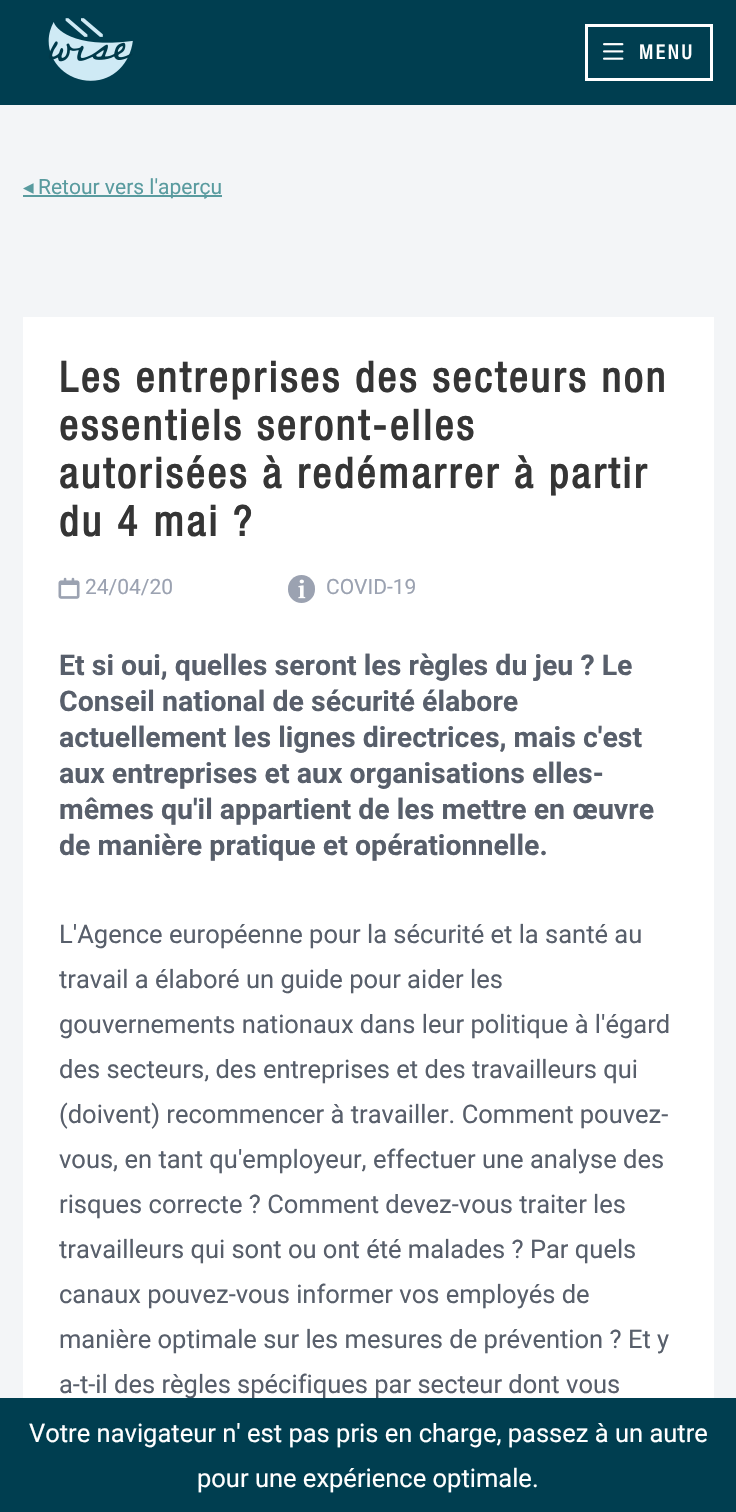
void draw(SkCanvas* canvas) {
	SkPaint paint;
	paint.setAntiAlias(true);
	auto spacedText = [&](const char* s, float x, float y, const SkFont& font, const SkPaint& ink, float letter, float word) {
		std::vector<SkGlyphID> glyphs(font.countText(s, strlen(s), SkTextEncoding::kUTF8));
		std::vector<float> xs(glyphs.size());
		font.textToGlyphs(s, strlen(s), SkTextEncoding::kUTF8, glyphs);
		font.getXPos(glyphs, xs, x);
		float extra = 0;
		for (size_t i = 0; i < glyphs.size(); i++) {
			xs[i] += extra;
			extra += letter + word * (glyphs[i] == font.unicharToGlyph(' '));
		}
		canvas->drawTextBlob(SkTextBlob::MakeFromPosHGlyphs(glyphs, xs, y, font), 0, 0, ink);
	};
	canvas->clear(0xfff3f5f7);
	paint.setColor(0xff003e50);
	canvas->drawRect(SkRect::MakeXYWH(0, 0, 736, 105), paint);
	canvas->drawImageRect(SkImages::DeferredFromEncodedData(SkData::MakeFromFileName("img1.png")), SkRect::MakeXYWH(48, 18, 85, 63), SkSamplingOptions());
	paint.setStroke(true);
	paint.setStrokeWidth(3);
	paint.setColor(0xffffffff);
	canvas->drawRect(SkRect::MakeXYWH(586.5, 25.5, 125, 54), paint);
	canvas->drawImageRect(SkImages::DeferredFromEncodedData(SkData::MakeFromFileName("img2.png")), SkRect::MakeXYWH(603, 43, 21, 17), SkSamplingOptions());
	SkFont f1(fontMgr->matchFamilyStyle("Helvetica Neue", SkFontStyle::Bold()), 19.5);
	f1.setSubpixel(true);
	paint.setStroke(false);
	spacedText("MENU", 639, 59, f1, paint, 3, 0);
	SkFont f2(fontMgr->matchFamilyStyle("DejaVu Sans", SkFontStyle::Normal()), 21);
	f2.setSubpixel(true);
	paint.setColor(0xff599b9f);
	canvas->drawString("◂", 23, 194, f2, paint);
	canvas->drawRect(SkRect::MakeXYWH(23, 195, 199, 2), paint);
	SkFont f3(fontMgr->matchFamilyStyle("Roboto", SkFontStyle::Normal()), 21);
	f3.setSubpixel(true);
	canvas->drawString("Retour vers l'aperçu", 38, 194, f3, paint);
	paint.setColor(0xffffffff);
	canvas->drawRect(SkRect::MakeXYWH(23, 317, 691, 1081), paint);
	SkFont f4(fontMgr->matchFamilyStyle("Helvetica Neue", SkFontStyle::Bold()), 42);
	f4.setSubpixel(true);
	paint.setColor(0xff353535);
	spacedText("Les entreprises des secteurs non", 59, 392, f4, paint, 3, 0);
	spacedText("essentiels seront-elles", 59, 440, f4, paint, 3, 0);
	spacedText("autorisées à redémarrer à partir", 59, 488, f4, paint, 3, 0);
	spacedText("du 4 mai ?", 59, 536, f4, paint, 3, 0);
	canvas->drawImageRect(SkImages::DeferredFromEncodedData(SkData::MakeFromFileName("img3.png")), SkRect::MakeXYWH(58, 577, 22, 22), SkSamplingOptions());
	paint.setColor(0xff9ba2b1);
	canvas->drawString("24/04/20", 85, 594, f3, paint);
	canvas->drawRoundRect(SkRect::MakeXYWH(288, 575, 27, 28), 13.5, 13.5, paint);
	canvas->drawString("COVID-19", 326, 594, f3, paint);
	canvas->drawImageRect(SkImages::DeferredFromEncodedData(SkData::MakeFromFileName("img4.png")), SkRect::MakeXYWH(298, 579, 8, 20), SkSamplingOptions());
	SkFont f5(fontMgr->matchFamilyStyle("Roboto", SkFontStyle::Bold()), 28.5);
	f5.setSubpixel(true);
	paint.setColor(0xff585f6b);
	canvas->drawString("Et si oui, quelles seront les règles du jeu ? Le", 59, 675, f5, paint);
	canvas->drawString("Conseil national de sécurité élabore", 59, 711, f5, paint);
	canvas->drawString("actuellement les lignes directrices, mais c'est", 59, 747, f5, paint);
	canvas->drawString("aux entreprises et aux organisations elles-", 59, 783, f5, paint);
	canvas->drawString("mêmes qu'il appartient de les mettre en œuvre", 59, 819, f5, paint);
	canvas->drawString("de manière pratique et opérationnelle.", 59, 855, f5, paint);
	SkFont f6(fontMgr->matchFamilyStyle("Roboto", SkFontStyle::Normal()), 25.5);
	f6.setSubpixel(true);
	canvas->drawString("L'Agence européenne pour la sécurité et la santé au", 59, 943, f6, paint);
	canvas->drawString("travail a élaboré un guide pour aider les", 59, 988, f6, paint);
	canvas->drawString("gouvernements nationaux dans leur politique à l'égard", 59, 1033, f6, paint);
	canvas->drawString("des secteurs, des entreprises et des travailleurs qui", 59, 1078, f6, paint);
	canvas->drawString("(doivent) recommencer à travailler. Comment pouvez-", 59, 1123, f6, paint);
	canvas->drawString("vous, en tant qu'employeur, effectuer une analyse des", 59, 1168, f6, paint);
	canvas->drawString("risques correcte ? Comment devez-vous traiter les", 59, 1213, f6, paint);
	canvas->drawString("travailleurs qui sont ou ont été malades ? Par quels", 59, 1258, f6, paint);
	canvas->drawString("canaux pouvez-vous informer vos employés de", 59, 1303, f6, paint);
	canvas->drawString("manière optimale sur les mesures de prévention ? Et y", 59, 1348, f6, paint);
	canvas->drawString("a-t-il des règles spécifiques par secteur dont vous", 59, 1393, f6, paint);
	paint.setColor(0xff003e50);
	canvas->drawRect(SkRect::MakeXYWH(0, 1398, 736, 114), paint);
	paint.setColor(0xffffffff);
	canvas->drawString("Votre navigateur n' est pas pris en charge, passez à un autre", 29, 1442, f6, paint);
	canvas->drawString("pour une expérience optimale.", 197, 1487, f6, paint);
}
